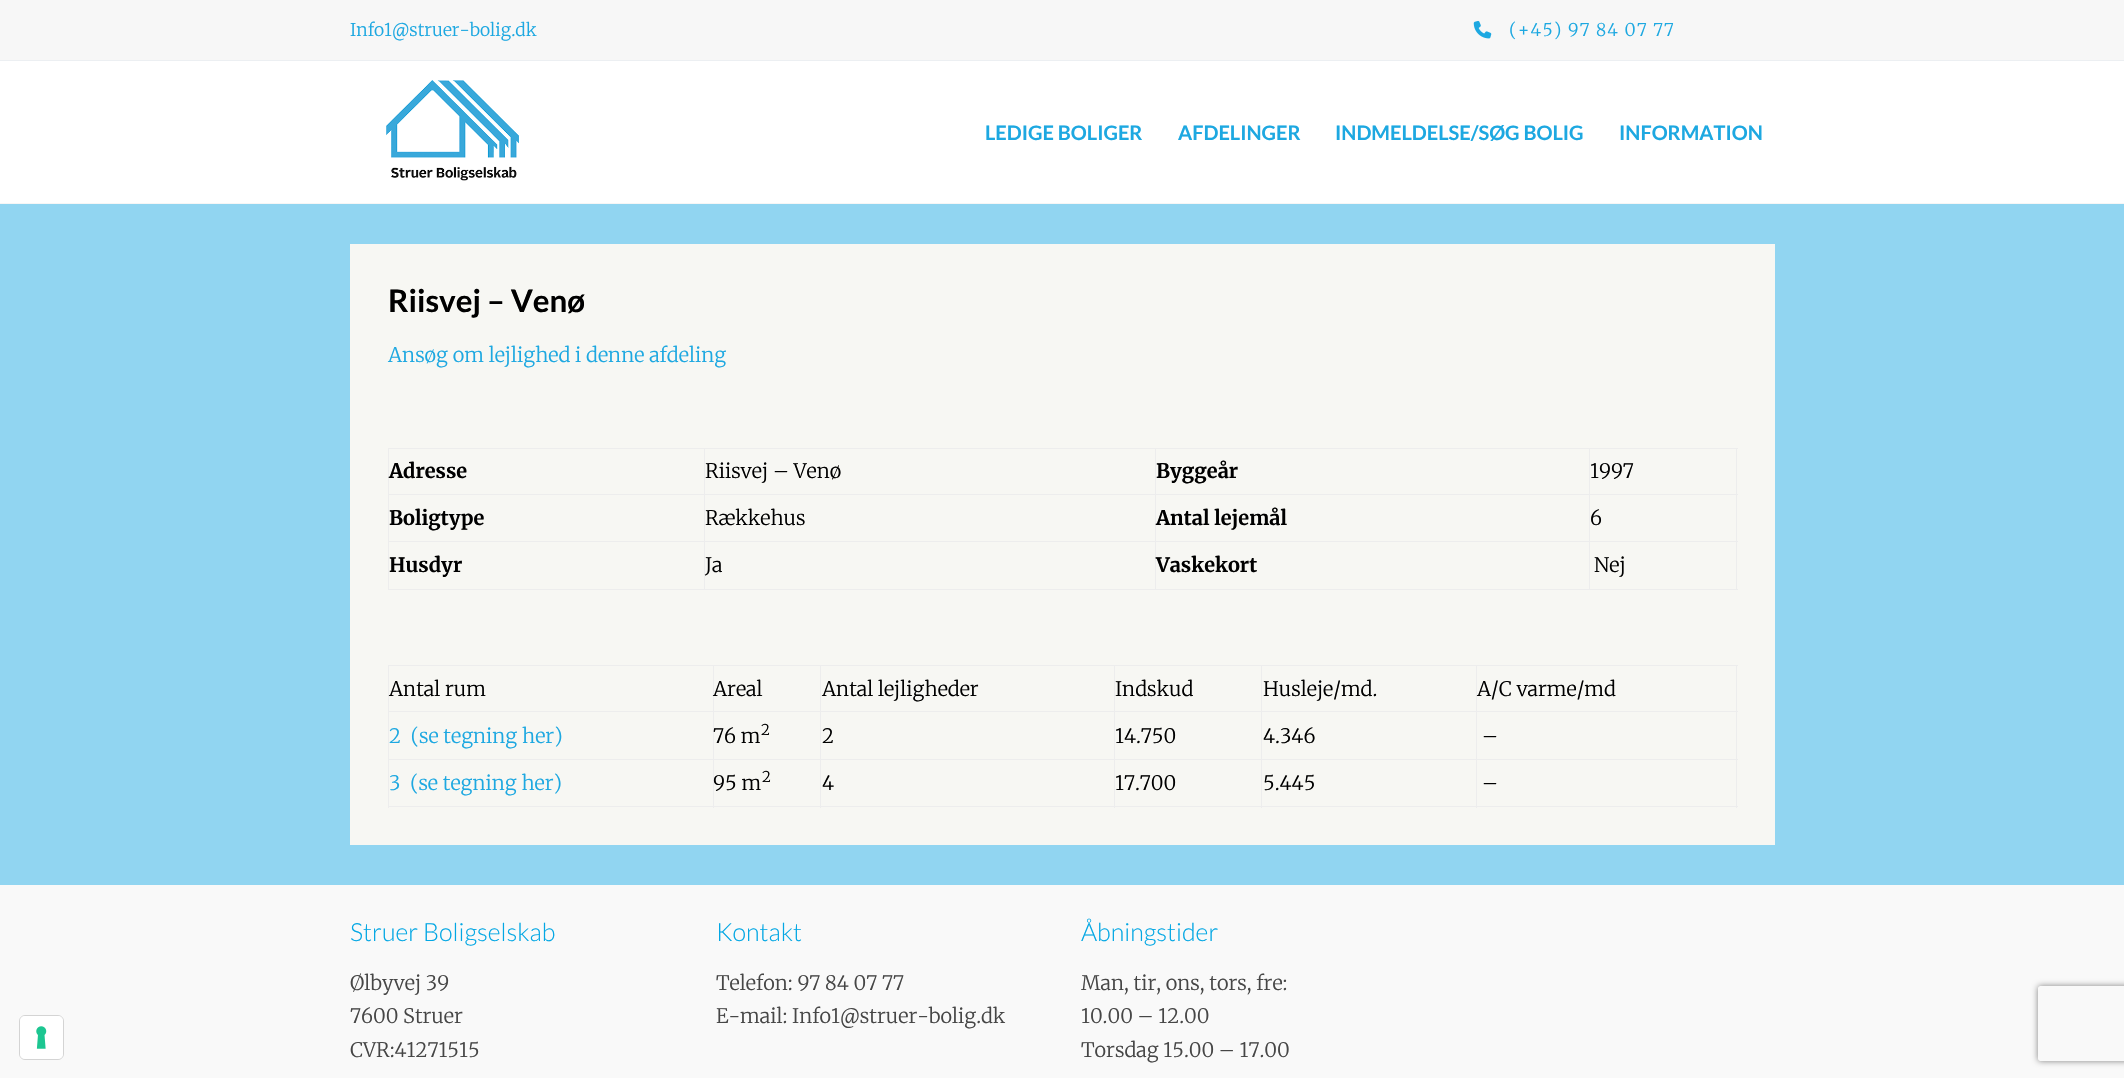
void draw(SkCanvas* canvas) {
	SkPaint paint;
	paint.setAntiAlias(true);
	auto spacedText = [&](const char* s, float x, float y, const SkFont& font, const SkPaint& ink, float letter, float word) {
		std::vector<SkGlyphID> glyphs(font.countText(s, strlen(s), SkTextEncoding::kUTF8));
		std::vector<float> xs(glyphs.size());
		font.textToGlyphs(s, strlen(s), SkTextEncoding::kUTF8, glyphs);
		font.getXPos(glyphs, xs, x);
		float extra = 0;
		for (size_t i = 0; i < glyphs.size(); i++) {
			xs[i] += extra;
			extra += letter + word * (glyphs[i] == font.unicharToGlyph(' '));
		}
		canvas->drawTextBlob(SkTextBlob::MakeFromPosHGlyphs(glyphs, xs, y, font), 0, 0, ink);
	};
	auto svgPath = [&](const char* data, bool evenOdd = false) {
		SkPath result = *SkParsePath::FromSVGString(data);
		if (evenOdd) result.setFillType(SkPathFillType::kEvenOdd);
		return result;
	};
	canvas->clear(0xffffffff);
	paint.setColor(0xfff7f7f7);
	canvas->drawRect(SkRect::MakeXYWH(0, 0, 2124, 60), paint);
	paint.setColor(0xffeceff2);
	canvas->drawRect(SkRect::MakeXYWH(0, 60, 2124, 1), paint);
	SkFont f1(fontMgr->matchFamilyStyle("Merriweather", SkFontStyle(300, SkFontStyle::kNormal_Width, SkFontStyle::kUpright_Slant)), 17.5);
	f1.setSubpixel(true);
	paint.setColor(0xff1da8e1);
	canvas->drawString("Info1@struer-bolig.dk", 350, 36, f1, paint);
	canvas->drawImageRect(SkImages::DeferredFromEncodedData(SkData::MakeFromFileName("img1.png")), SkRect::MakeXYWH(1473, 20, 19, 19), SkSamplingOptions());
	spacedText("(+45) 97 84 07 77", 1509, 36, f1, paint, 1.25, 0);
	paint.setColor(0xfff6f6f6);
	canvas->drawRect(SkRect::MakeXYWH(0, 203, 2124, 1), paint);
	canvas->drawImageRect(SkImages::DeferredFromEncodedData(SkData::MakeFromFileName("img2.png")), SkRect::MakeXYWH(386, 80, 133, 101), SkSamplingOptions());
	SkFont f2(fontMgr->matchFamilyStyle("Lato", SkFontStyle::Bold()), 20);
	f2.setSubpixel(true);
	paint.setColor(0xff1da8e1);
	canvas->drawString("LEDIGE BOLIGER", 985, 140, f2, paint);
	canvas->drawString("AFDELINGER", 1178, 140, f2, paint);
	canvas->drawString("INDMELDELSE/SØG BOLIG", 1335, 140, f2, paint);
	canvas->drawString("INFORMATION", 1619, 140, f2, paint);
	paint.setColor(0xff91d5f1);
	canvas->drawRect(SkRect::MakeXYWH(0, 204, 2124, 681), paint);
	paint.setColor(0xfff7f7f3);
	canvas->drawRect(SkRect::MakeXYWH(350, 244, 1425, 601), paint);
	SkFont f3(fontMgr->matchFamilyStyle("Lato", SkFontStyle::Bold()), 31.25);
	f3.setSubpixel(true);
	paint.setColor(0xff000000);
	canvas->drawString("Riisvej – Venø", 388, 312, f3, paint);
	SkFont f4(fontMgr->matchFamilyStyle("Merriweather", SkFontStyle(300, SkFontStyle::kNormal_Width, SkFontStyle::kUpright_Slant)), 20);
	f4.setSubpixel(true);
	paint.setColor(0xff1da8e1);
	canvas->drawString("Ansøg om lejlighed i denne afdeling", 388, 362, f4, paint);
	paint.setColor(0xffededed);
	canvas->drawRect(SkRect::MakeXYWH(1589, 448, 149, 1), paint);
	canvas->drawRect(SkRect::MakeXYWH(1589, 494, 149, 1), paint);
	canvas->drawRect(SkRect::MakeXYWH(1589, 541, 149, 1), paint);
	canvas->drawRect(SkRect::MakeXYWH(1736, 541, 1, 49), paint);
	canvas->drawRect(SkRect::MakeXYWH(1589, 589, 149, 1), paint);
	canvas->drawRect(SkRect::MakeXYWH(1589, 541, 1, 49), paint);
	canvas->drawRect(SkRect::MakeXYWH(1155, 541, 435, 1), paint);
	canvas->drawRect(SkRect::MakeXYWH(1589, 494, 1, 49), paint);
	canvas->drawRect(SkRect::MakeXYWH(1155, 494, 435, 1), paint);
	canvas->drawRect(SkRect::MakeXYWH(1589, 448, 1, 47), paint);
	canvas->drawRect(SkRect::MakeXYWH(1155, 448, 435, 1), paint);
	canvas->drawRect(SkRect::MakeXYWH(1155, 589, 435, 1), paint);
	canvas->drawRect(SkRect::MakeXYWH(1155, 541, 1, 49), paint);
	canvas->drawRect(SkRect::MakeXYWH(704, 541, 452, 1), paint);
	canvas->drawRect(SkRect::MakeXYWH(1155, 494, 1, 49), paint);
	canvas->drawRect(SkRect::MakeXYWH(704, 494, 452, 1), paint);
	canvas->drawRect(SkRect::MakeXYWH(1155, 448, 1, 47), paint);
	canvas->drawRect(SkRect::MakeXYWH(704, 448, 452, 1), paint);
	canvas->drawRect(SkRect::MakeXYWH(704, 589, 452, 1), paint);
	canvas->drawRect(SkRect::MakeXYWH(704, 541, 1, 49), paint);
	canvas->drawRect(SkRect::MakeXYWH(388, 541, 317, 1), paint);
	canvas->drawRect(SkRect::MakeXYWH(704, 494, 1, 49), paint);
	canvas->drawRect(SkRect::MakeXYWH(388, 494, 317, 1), paint);
	canvas->drawRect(SkRect::MakeXYWH(704, 448, 1, 47), paint);
	canvas->drawRect(SkRect::MakeXYWH(388, 448, 317, 1), paint);
	canvas->drawRect(SkRect::MakeXYWH(388, 589, 317, 1), paint);
	canvas->drawRect(SkRect::MakeXYWH(388, 541, 1, 49), paint);
	canvas->drawRect(SkRect::MakeXYWH(388, 494, 1, 49), paint);
	canvas->drawRect(SkRect::MakeXYWH(388, 448, 1, 47), paint);
	SkFont f5(fontMgr->matchFamilyStyle("Merriweather", SkFontStyle::Bold()), 20);
	f5.setSubpixel(true);
	paint.setColor(0xff000000);
	canvas->drawString("Adresse", 389, 478, f5, paint);
	canvas->drawString("Riisvej – Venø", 705, 478, f4, paint);
	canvas->drawString("Byggeår", 1156, 478, f5, paint);
	paint.setColor(0xffededed);
	canvas->drawRect(SkRect::MakeXYWH(1736, 494, 1, 49), paint);
	canvas->drawRect(SkRect::MakeXYWH(1736, 448, 1, 47), paint);
	paint.setColor(0xff000000);
	canvas->drawString("1997", 1590, 478, f4, paint);
	canvas->drawString("Boligtype", 389, 525, f5, paint);
	canvas->drawString("Rækkehus", 705, 525, f4, paint);
	canvas->drawString("Antal lejemål", 1156, 525, f5, paint);
	canvas->drawString("6", 1590, 525, f4, paint);
	canvas->drawString("Husdyr", 389, 572, f5, paint);
	canvas->drawString("Ja", 705, 572, f4, paint);
	canvas->drawString("Vaskekort", 1156, 572, f5, paint);
	canvas->drawString("Nej", 1594, 572, f4, paint);
	paint.setColor(0xffededed);
	canvas->drawRect(SkRect::MakeXYWH(1476, 665, 262, 1), paint);
	canvas->drawRect(SkRect::MakeXYWH(1476, 711, 262, 1), paint);
	canvas->drawRect(SkRect::MakeXYWH(1476, 759, 262, 1), paint);
	canvas->drawRect(SkRect::MakeXYWH(1736, 759, 1, 49), paint);
	canvas->drawRect(SkRect::MakeXYWH(1476, 806, 262, 1), paint);
	canvas->drawRect(SkRect::MakeXYWH(1476, 759, 1, 49), paint);
	canvas->drawRect(SkRect::MakeXYWH(1261, 759, 217, 1), paint);
	canvas->drawRect(SkRect::MakeXYWH(1476, 711, 1, 49), paint);
	canvas->drawRect(SkRect::MakeXYWH(1261, 711, 217, 1), paint);
	canvas->drawRect(SkRect::MakeXYWH(1476, 665, 1, 48), paint);
	canvas->drawRect(SkRect::MakeXYWH(1261, 665, 217, 1), paint);
	canvas->drawRect(SkRect::MakeXYWH(1261, 806, 217, 1), paint);
	canvas->drawRect(SkRect::MakeXYWH(1261, 759, 1, 49), paint);
	canvas->drawRect(SkRect::MakeXYWH(1114, 759, 149, 1), paint);
	canvas->drawRect(SkRect::MakeXYWH(1261, 711, 1, 49), paint);
	canvas->drawRect(SkRect::MakeXYWH(1114, 711, 149, 1), paint);
	canvas->drawRect(SkRect::MakeXYWH(1261, 665, 1, 48), paint);
	canvas->drawRect(SkRect::MakeXYWH(1114, 665, 149, 1), paint);
	canvas->drawRect(SkRect::MakeXYWH(1114, 806, 149, 1), paint);
	canvas->drawRect(SkRect::MakeXYWH(1114, 759, 1, 49), paint);
	canvas->drawRect(SkRect::MakeXYWH(820, 759, 295, 1), paint);
	canvas->drawRect(SkRect::MakeXYWH(1114, 711, 1, 49), paint);
	canvas->drawRect(SkRect::MakeXYWH(820, 711, 295, 1), paint);
	canvas->drawRect(SkRect::MakeXYWH(1114, 665, 1, 48), paint);
	canvas->drawRect(SkRect::MakeXYWH(820, 665, 295, 1), paint);
	canvas->drawRect(SkRect::MakeXYWH(820, 806, 295, 1), paint);
	canvas->drawRect(SkRect::MakeXYWH(820, 759, 1, 49), paint);
	canvas->drawRect(SkRect::MakeXYWH(713, 759, 108, 1), paint);
	canvas->drawRect(SkRect::MakeXYWH(820, 711, 1, 49), paint);
	canvas->drawRect(SkRect::MakeXYWH(713, 711, 108, 1), paint);
	canvas->drawRect(SkRect::MakeXYWH(820, 665, 1, 48), paint);
	canvas->drawRect(SkRect::MakeXYWH(713, 665, 108, 1), paint);
	canvas->drawRect(SkRect::MakeXYWH(713, 806, 108, 1), paint);
	canvas->drawRect(SkRect::MakeXYWH(713, 759, 1, 49), paint);
	canvas->drawRect(SkRect::MakeXYWH(388, 759, 326, 1), paint);
	canvas->drawRect(SkRect::MakeXYWH(713, 711, 1, 49), paint);
	canvas->drawRect(SkRect::MakeXYWH(388, 711, 326, 1), paint);
	canvas->drawRect(SkRect::MakeXYWH(713, 665, 1, 48), paint);
	canvas->drawRect(SkRect::MakeXYWH(388, 665, 326, 1), paint);
	canvas->drawRect(SkRect::MakeXYWH(388, 806, 326, 1), paint);
	canvas->drawRect(SkRect::MakeXYWH(388, 759, 1, 49), paint);
	canvas->drawRect(SkRect::MakeXYWH(388, 711, 1, 49), paint);
	canvas->drawRect(SkRect::MakeXYWH(388, 665, 1, 48), paint);
	paint.setColor(0xff000000);
	canvas->drawString("Antal rum", 389, 696, f4, paint);
	canvas->drawString("Areal", 713, 696, f4, paint);
	canvas->drawString("Antal lejligheder", 822, 696, f4, paint);
	canvas->drawString("Indskud", 1115, 696, f4, paint);
	canvas->drawString("Husleje/md.", 1263, 696, f4, paint);
	paint.setColor(0xffededed);
	canvas->drawRect(SkRect::MakeXYWH(1736, 711, 1, 49), paint);
	canvas->drawRect(SkRect::MakeXYWH(1736, 665, 1, 48), paint);
	paint.setColor(0xff000000);
	canvas->drawString("A/C varme/md", 1477, 696, f4, paint);
	paint.setColor(0xff1da8e1);
	canvas->drawString("2  (se tegning her)", 389, 743, f4, paint);
	paint.setColor(0xff000000);
	canvas->drawString("76 m", 713, 743, f4, paint);
	SkFont f6(fontMgr->matchFamilyStyle("Merriweather", SkFontStyle(300, SkFontStyle::kNormal_Width, SkFontStyle::kUpright_Slant)), 15);
	f6.setSubpixel(true);
	canvas->drawString("2", 761, 735, f6, paint);
	canvas->drawString("2", 822, 743, f4, paint);
	canvas->drawString("14.750", 1115, 743, f4, paint);
	canvas->drawString("4.346", 1263, 743, f4, paint);
	canvas->drawString("–", 1482, 743, f4, paint);
	paint.setColor(0xff1da8e1);
	canvas->drawString("3  (se tegning her)", 389, 790, f4, paint);
	paint.setColor(0xff000000);
	canvas->drawString("95 m", 713, 790, f4, paint);
	canvas->drawString("2", 762, 782, f6, paint);
	canvas->drawString("4", 822, 790, f4, paint);
	canvas->drawString("17.700", 1115, 790, f4, paint);
	canvas->drawString("5.445", 1263, 790, f4, paint);
	canvas->drawString("–", 1482, 790, f4, paint);
	paint.setColor(0xfff9f9f9);
	canvas->drawRect(SkRect::MakeXYWH(0, 885, 2124, 193), paint);
	paint.setStroke(true);
	paint.setStrokeWidth(1);
	paint.setColor(0xffd4d4d4);
	canvas->drawRoundRect(SkRect::MakeXYWH(19.5, 1015.5, 44, 44), 5.5, 5.5, paint);
	paint.setStroke(false);
	paint.setColor(0xffffffff);
	canvas->drawRoundRect(SkRect::MakeXYWH(20, 1016, 43, 43), 5, 5, paint);
	canvas->drawImageRect(SkImages::DeferredFromEncodedData(SkData::MakeFromFileName("img3.png")), SkRect::MakeXYWH(36, 1026, 11, 23), SkSamplingOptions());
	SkFont f7(fontMgr->matchFamilyStyle("Lato", SkFontStyle(300, SkFontStyle::kNormal_Width, SkFontStyle::kUpright_Slant)), 25);
	f7.setSubpixel(true);
	paint.setColor(0xff03a7e4);
	canvas->drawString("Struer Boligselskab", 350, 941, f7, paint);
	paint.setColor(0xff464646);
	canvas->drawString("Ølbyvej 39", 350, 990, f4, paint);
	canvas->drawString("7600 Struer", 350, 1023, f4, paint);
	canvas->drawString("CVR:41271515", 350, 1057, f4, paint);
	paint.setColor(0xff03a7e4);
	canvas->drawString("Kontakt", 716, 941, f7, paint);
	paint.setColor(0xff464646);
	canvas->drawString("Telefon: 97 84 07 77", 716, 990, f4, paint);
	canvas->drawString("E-mail: Info1@struer-bolig.dk", 716, 1023, f4, paint);
	paint.setColor(0xff03a7e4);
	canvas->drawString("Åbningstider", 1081, 941, f7, paint);
	paint.setColor(0xff464646);
	canvas->drawString("Man, tir, ons, tors, fre:", 1081, 990, f4, paint);
	canvas->drawString("10.00 – 12.00", 1081, 1023, f4, paint);
	canvas->drawString("Torsdag 15.00 – 17.00", 1081, 1057, f4, paint);
	canvas->save();
	canvas->clipPath(svgPath("M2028 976H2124V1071H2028ZM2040.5 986H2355.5C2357 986 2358 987 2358 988.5V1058.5C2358 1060 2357 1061 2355.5 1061H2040.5C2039 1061 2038 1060 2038 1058.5V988.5C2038 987 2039 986 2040.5 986Z", true), true);
	paint.setColor(0xff808080);
	paint.setMaskFilter(SkMaskFilter::MakeBlur(kNormal_SkBlurStyle, 3));
	canvas->drawRoundRect(SkRect::MakeXYWH(2038, 986, 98, 75), 2.5, 2.5, paint);
	paint.setMaskFilter(nullptr);
	canvas->restore();
}
